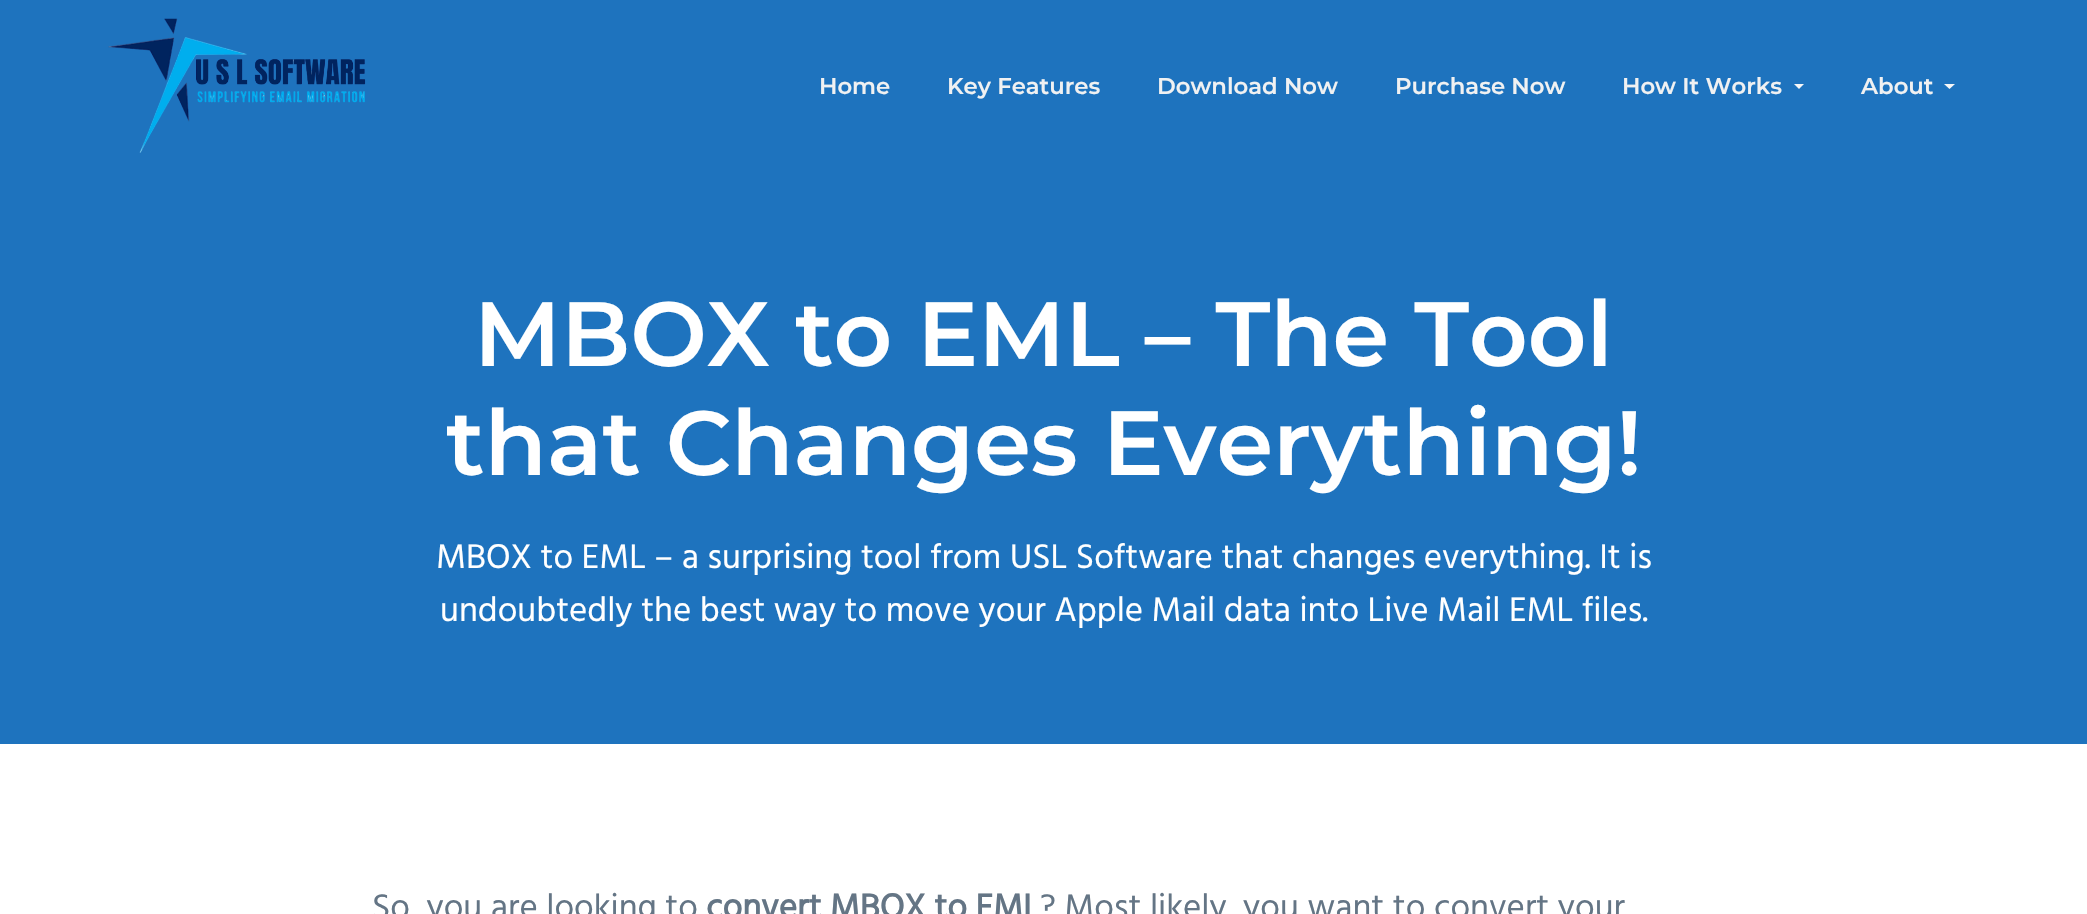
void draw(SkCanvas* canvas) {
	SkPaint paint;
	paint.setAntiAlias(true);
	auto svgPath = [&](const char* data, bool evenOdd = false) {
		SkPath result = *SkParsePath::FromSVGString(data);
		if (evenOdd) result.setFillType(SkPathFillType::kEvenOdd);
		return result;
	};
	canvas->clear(0xffffffff);
	paint.setColor(0xff1e73be);
	canvas->drawRect(SkRect::MakeXYWH(0, 0, 2087, 744), paint);
	canvas->drawImageRect(SkImages::DeferredFromEncodedData(SkData::MakeFromFileName("img1.png")), SkRect::MakeXYWH(108, 18, 258, 135), SkSamplingOptions());
	SkFont f1(fontMgr->matchFamilyStyle("Montserrat", SkFontStyle(100, SkFontStyle::kNormal_Width, SkFontStyle::kUpright_Slant)), 22.75);
	f1.setSubpixel(true);
	paint.setColor(0xfff0f1f2);
	canvas->drawString("Home", 819, 94, f1, paint);
	canvas->drawString("Key Features", 947, 94, f1, paint);
	canvas->drawString("Download Now", 1157, 94, f1, paint);
	canvas->drawString("Purchase Now", 1395, 94, f1, paint);
	canvas->drawString("How It Works", 1622, 94, f1, paint);
	paint.setColor(0xfff6f7f8);
	canvas->drawPath(svgPath("M1794 84H1804L1799 89Z"), paint);
	paint.setColor(0xfff0f1f2);
	canvas->drawString("About", 1861, 94, f1, paint);
	paint.setColor(0xfff6f7f8);
	canvas->drawPath(svgPath("M1944 84H1955L1949.5 89Z"), paint);
	SkFont f2(fontMgr->matchFamilyStyle("Montserrat", SkFontStyle(100, SkFontStyle::kNormal_Width, SkFontStyle::kUpright_Slant)), 91);
	f2.setSubpixel(true);
	paint.setColor(0xffffffff);
	canvas->drawString("MBOX to EML – The Tool", 474, 366, f2, paint);
	canvas->drawString("that Changes Everything!", 446, 475, f2, paint);
	SkFont f3(fontMgr->matchFamilyStyle("Hind", SkFontStyle::Normal()), 35);
	f3.setSubpixel(true);
	canvas->drawString("MBOX to EML – a surprising tool from USL Software that changes everything. It is", 436, 568, f3, paint);
	canvas->drawString("undoubtedly the best way to move your Apple Mail data into Live Mail EML files.", 440, 621, f3, paint);
	paint.setColor(0xff647585);
	canvas->drawString("So, you are looking to", 372, 918, f3, paint);
	SkFont f4(fontMgr->matchFamilyStyle("Hind", SkFontStyle::Bold()), 35);
	f4.setSubpixel(true);
	canvas->drawString("convert MBOX to EML", 706, 918, f4, paint);
	canvas->drawString("? Most likely, you want to convert your", 1040, 918, f3, paint);
}
